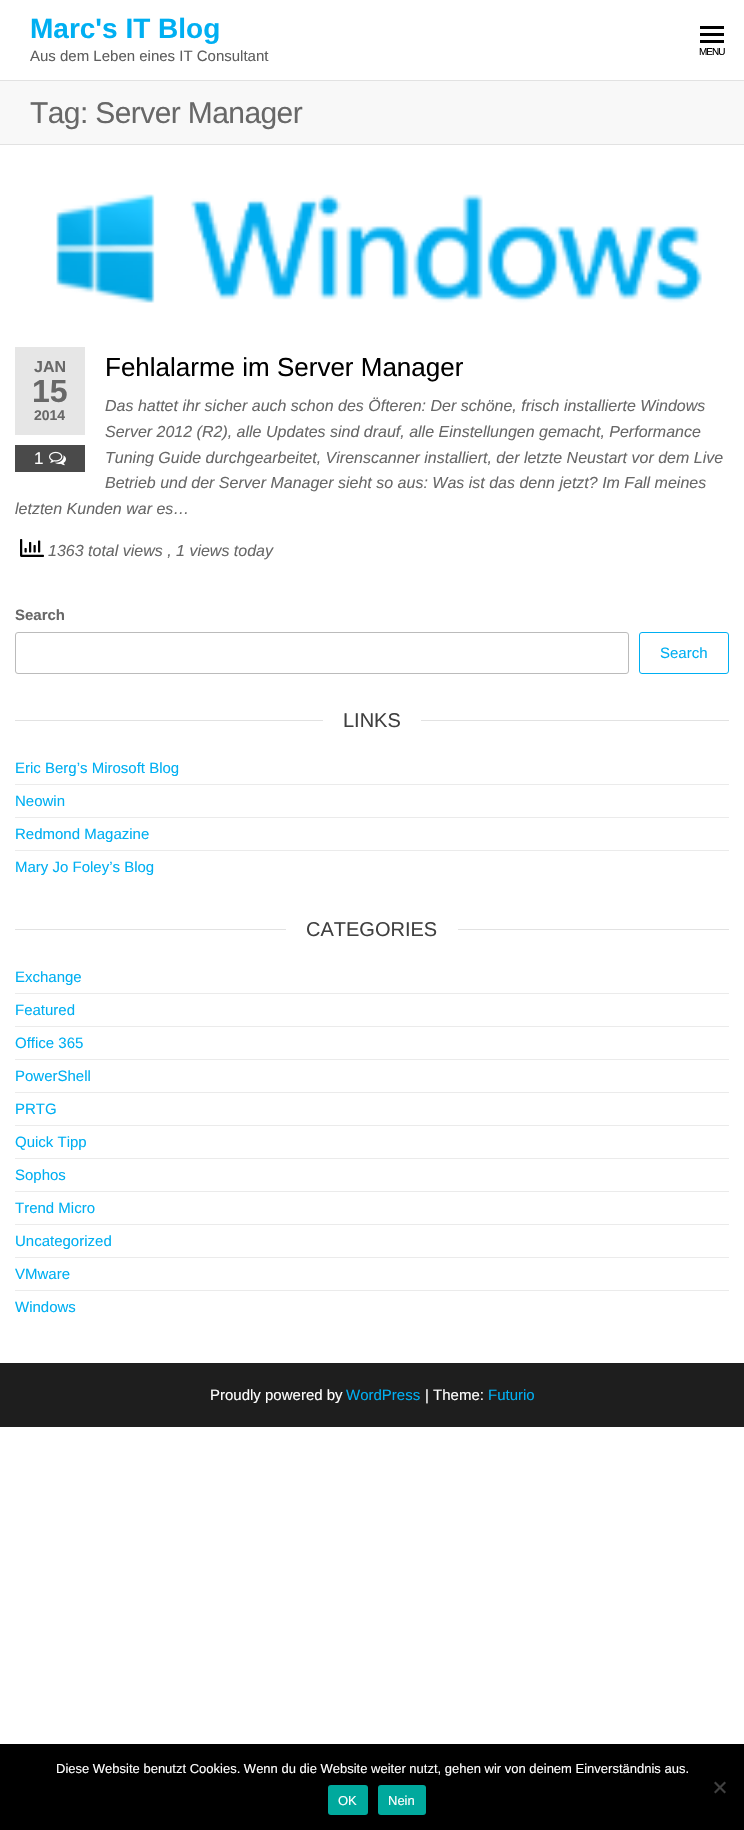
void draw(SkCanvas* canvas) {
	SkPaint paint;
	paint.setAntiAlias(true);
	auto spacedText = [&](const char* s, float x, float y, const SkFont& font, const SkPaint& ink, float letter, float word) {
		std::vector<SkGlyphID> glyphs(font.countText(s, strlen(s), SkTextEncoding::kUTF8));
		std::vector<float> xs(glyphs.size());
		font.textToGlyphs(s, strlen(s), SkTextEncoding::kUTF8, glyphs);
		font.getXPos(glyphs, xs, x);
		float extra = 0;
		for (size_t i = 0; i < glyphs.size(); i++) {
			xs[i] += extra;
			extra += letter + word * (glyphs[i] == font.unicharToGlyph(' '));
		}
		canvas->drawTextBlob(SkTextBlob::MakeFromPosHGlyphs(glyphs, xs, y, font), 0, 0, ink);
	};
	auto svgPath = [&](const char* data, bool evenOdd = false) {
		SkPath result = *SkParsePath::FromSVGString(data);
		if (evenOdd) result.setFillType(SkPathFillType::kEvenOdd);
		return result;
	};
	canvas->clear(0xffffffff);
	paint.setColor(0xffe2e2e2);
	canvas->drawRect(SkRect::MakeXYWH(0, 80, 744, 1), paint);
	SkFont f1(fontMgr->matchFamilyStyle("Liberation Sans", SkFontStyle::Bold()), 28);
	f1.setSubpixel(true);
	paint.setColor(0xff00aff2);
	canvas->drawString("Marc's IT Blog", 30, 38, f1, paint);
	SkFont f2(fontMgr->matchFamilyStyle("Liberation Sans", SkFontStyle::Normal()), 15);
	f2.setSubpixel(true);
	paint.setColor(0xff5e5e5e);
	canvas->drawString("Aus dem Leben eines IT Consultant", 30, 61, f2, paint);
	paint.setColor(0xff000000);
	canvas->drawRect(SkRect::MakeXYWH(700, 26, 24, 3), paint);
	canvas->drawRect(SkRect::MakeXYWH(700, 33, 24, 3), paint);
	canvas->drawRect(SkRect::MakeXYWH(700, 40, 24, 3), paint);
	SkFont f3(fontMgr->matchFamilyStyle("Liberation Sans", SkFontStyle::Normal()), 10);
	f3.setSubpixel(true);
	spacedText("MENU", 699, 55, f3, paint, -1, 0);
	paint.setColor(0xfff8f8f8);
	canvas->drawRect(SkRect::MakeXYWH(0, 81, 744, 63), paint);
	paint.setColor(0xffe2e2e2);
	canvas->drawRect(SkRect::MakeXYWH(0, 144, 744, 1), paint);
	SkFont f4(fontMgr->matchFamilyStyle("Liberation Sans", SkFontStyle::Normal()), 30);
	f4.setSubpixel(true);
	paint.setColor(0xff686868);
	spacedText("Tag: Server Manager", 30, 123, f4, paint, -0.6, 0);
	canvas->drawImageRect(SkImages::DeferredFromEncodedData(SkData::MakeFromFileName("img1.png")), SkRect::MakeXYWH(56, 194, 646, 109), SkSamplingOptions());
	paint.setColor(0xffe6e6e6);
	canvas->drawRect(SkRect::MakeXYWH(15, 347, 70, 88), paint);
	SkFont f5(fontMgr->matchFamilyStyle("Liberation Sans", SkFontStyle::Bold()), 16);
	f5.setSubpixel(true);
	paint.setColor(0xff686868);
	canvas->drawString("JAN", 34, 372, f5, paint);
	SkFont f6(fontMgr->matchFamilyStyle("Liberation Sans", SkFontStyle::Bold()), 32);
	f6.setSubpixel(true);
	canvas->drawString("15", 32, 402, f6, paint);
	SkFont f7(fontMgr->matchFamilyStyle("Liberation Sans", SkFontStyle::Bold()), 14);
	f7.setSubpixel(true);
	canvas->drawString("2014", 34, 420, f7, paint);
	paint.setColor(0xff4a4a4a);
	canvas->drawRect(SkRect::MakeXYWH(15, 445, 70, 27), paint);
	SkFont f8(fontMgr->matchFamilyStyle("Liberation Sans", SkFontStyle::Normal()), 17);
	f8.setSubpixel(true);
	paint.setColor(0xffffffff);
	canvas->drawString("1", 34, 464, f8, paint);
	canvas->drawImageRect(SkImages::DeferredFromEncodedData(SkData::MakeFromFileName("img2.png")), SkRect::MakeXYWH(49, 451, 17, 15), SkSamplingOptions());
	SkFont f9(fontMgr->matchFamilyStyle("Liberation Sans", SkFontStyle::Normal()), 26);
	f9.setSubpixel(true);
	paint.setColor(0xff000000);
	canvas->drawString("Fehlalarme im Server Manager", 105, 376, f9, paint);
	SkFont f10(fontMgr->matchFamilyStyle("Liberation Sans", SkFontStyle::Italic()), 16);
	f10.setSubpixel(true);
	paint.setColor(0xff686868);
	canvas->drawString("Das hattet ihr sicher auch schon des Öfteren: Der schöne, frisch installierte Windows", 105, 411, f10, paint);
	canvas->drawString("Server 2012 (R2), alle Updates sind drauf, alle Einstellungen gemacht, Performance", 105, 437, f10, paint);
	canvas->drawString("Tuning Guide durchgearbeitet, Virenscanner installiert, der letzte Neustart vor dem Live", 105, 463, f10, paint);
	canvas->drawString("Betrieb und der Server Manager sieht so aus: Was ist das denn jetzt? Im Fall meines", 105, 488, f10, paint);
	canvas->drawString("letzten Kunden war es…", 15, 514, f10, paint);
	canvas->drawImageRect(SkImages::DeferredFromEncodedData(SkData::MakeFromFileName("img3.png")), SkRect::MakeXYWH(20, 539, 24, 18), SkSamplingOptions());
	canvas->drawString("1363 total views , 1 views today", 48, 556, f10, paint);
	SkFont f11(fontMgr->matchFamilyStyle("Liberation Sans", SkFontStyle::Bold()), 15);
	f11.setSubpixel(true);
	canvas->drawString("Search", 15, 620, f11, paint);
	paint.setStroke(true);
	paint.setStrokeWidth(1);
	paint.setColor(0xffbbbbbb);
	canvas->drawRoundRect(SkRect::MakeXYWH(15.5, 632.5, 613, 41), 2.5, 2.5, paint);
	paint.setColor(0xff00aff2);
	canvas->drawRoundRect(SkRect::MakeXYWH(639.5, 632.5, 89, 41), 2.5, 2.5, paint);
	paint.setStroke(false);
	canvas->drawString("Search", 660, 658, f2, paint);
	paint.setColor(0xffe2e2e2);
	canvas->drawRect(SkRect::MakeXYWH(15, 720, 714, 1), paint);
	paint.setColor(0xffffffff);
	canvas->drawRect(SkRect::MakeXYWH(323, 720, 98, 1), paint);
	SkFont f12(fontMgr->matchFamilyStyle("Liberation Sans", SkFontStyle::Normal()), 20);
	f12.setSubpixel(true);
	paint.setColor(0xff404040);
	canvas->drawString("LINKS", 343, 727, f12, paint);
	paint.setColor(0xffebebeb);
	canvas->drawRect(SkRect::MakeXYWH(15, 784, 714, 1), paint);
	paint.setColor(0xff00aff2);
	canvas->drawString("Eric Berg’s Mirosoft Blog", 15, 773, f2, paint);
	paint.setColor(0xffebebeb);
	canvas->drawRect(SkRect::MakeXYWH(15, 817, 714, 1), paint);
	paint.setColor(0xff00aff2);
	canvas->drawString("Neowin", 15, 806, f2, paint);
	paint.setColor(0xffebebeb);
	canvas->drawRect(SkRect::MakeXYWH(15, 850, 714, 1), paint);
	paint.setColor(0xff00aff2);
	canvas->drawString("Redmond Magazine", 15, 839, f2, paint);
	canvas->drawString("Mary Jo Foley’s Blog", 15, 872, f2, paint);
	paint.setColor(0xffe2e2e2);
	canvas->drawRect(SkRect::MakeXYWH(15, 929, 714, 1), paint);
	paint.setColor(0xffffffff);
	canvas->drawRect(SkRect::MakeXYWH(286, 929, 172, 1), paint);
	paint.setColor(0xff404040);
	canvas->drawString("CATEGORIES", 306, 936, f12, paint);
	paint.setColor(0xffebebeb);
	canvas->drawRect(SkRect::MakeXYWH(15, 993, 714, 1), paint);
	paint.setColor(0xff00aff2);
	canvas->drawString("Exchange", 15, 982, f2, paint);
	paint.setColor(0xffebebeb);
	canvas->drawRect(SkRect::MakeXYWH(15, 1026, 714, 1), paint);
	paint.setColor(0xff00aff2);
	canvas->drawString("Featured", 15, 1015, f2, paint);
	paint.setColor(0xffebebeb);
	canvas->drawRect(SkRect::MakeXYWH(15, 1059, 714, 1), paint);
	paint.setColor(0xff00aff2);
	canvas->drawString("Office 365", 15, 1048, f2, paint);
	paint.setColor(0xffebebeb);
	canvas->drawRect(SkRect::MakeXYWH(15, 1092, 714, 1), paint);
	paint.setColor(0xff00aff2);
	canvas->drawString("PowerShell", 15, 1081, f2, paint);
	paint.setColor(0xffebebeb);
	canvas->drawRect(SkRect::MakeXYWH(15, 1125, 714, 1), paint);
	paint.setColor(0xff00aff2);
	canvas->drawString("PRTG", 15, 1114, f2, paint);
	paint.setColor(0xffebebeb);
	canvas->drawRect(SkRect::MakeXYWH(15, 1158, 714, 1), paint);
	paint.setColor(0xff00aff2);
	canvas->drawString("Quick Tipp", 15, 1147, f2, paint);
	paint.setColor(0xffebebeb);
	canvas->drawRect(SkRect::MakeXYWH(15, 1191, 714, 1), paint);
	paint.setColor(0xff00aff2);
	canvas->drawString("Sophos", 15, 1180, f2, paint);
	paint.setColor(0xffebebeb);
	canvas->drawRect(SkRect::MakeXYWH(15, 1224, 714, 1), paint);
	paint.setColor(0xff00aff2);
	canvas->drawString("Trend Micro", 15, 1213, f2, paint);
	paint.setColor(0xffebebeb);
	canvas->drawRect(SkRect::MakeXYWH(15, 1257, 714, 1), paint);
	paint.setColor(0xff00aff2);
	canvas->drawString("Uncategorized", 15, 1246, f2, paint);
	paint.setColor(0xffebebeb);
	canvas->drawRect(SkRect::MakeXYWH(15, 1290, 714, 1), paint);
	paint.setColor(0xff00aff2);
	canvas->drawString("VMware", 15, 1279, f2, paint);
	canvas->drawString("Windows", 15, 1312, f2, paint);
	paint.setColor(0xff1e1e1e);
	canvas->drawRect(SkRect::MakeXYWH(0, 1363, 744, 64), paint);
	paint.setColor(0xffffffff);
	canvas->drawString("Proudly powered by", 210, 1400, f2, paint);
	paint.setColor(0xff00aff2);
	canvas->drawString("WordPress", 346, 1400, f2, paint);
	paint.setColor(0xffffffff);
	canvas->drawString("| Theme:", 425, 1400, f2, paint);
	paint.setColor(0xff00aff2);
	canvas->drawString("Futurio", 488, 1400, f2, paint);
	paint.setColor(0xff000000);
	canvas->drawRect(SkRect::MakeXYWH(0, 1744, 744, 86), paint);
	SkFont f13(fontMgr->matchFamilyStyle("Liberation Sans", SkFontStyle::Normal()), 13);
	f13.setSubpixel(true);
	paint.setColor(0xffffffff);
	canvas->drawString("Diese Website benutzt Cookies. Wenn du die Website weiter nutzt, gehen wir von deinem Einverständnis aus.", 56, 1773, f13, paint);
	paint.setColor(0xff404040);
	canvas->drawPath(svgPath("M724.5 1781.5L726 1783L715.5 1793.5L714 1792Z"), paint);
	canvas->drawPath(svgPath("M714 1783L715.5 1781.5L726 1792L724.5 1793.5Z"), paint);
	paint.setColor(0xff00a99d);
	canvas->drawRoundRect(SkRect::MakeXYWH(328, 1785, 40, 30), 3, 3, paint);
	paint.setColor(0xffffffff);
	canvas->drawString("OK", 338, 1805, f13, paint);
	paint.setColor(0xff00a99d);
	canvas->drawRoundRect(SkRect::MakeXYWH(378, 1785, 48, 30), 3, 3, paint);
	paint.setColor(0xffffffff);
	canvas->drawString("Nein", 388, 1805, f13, paint);
}
